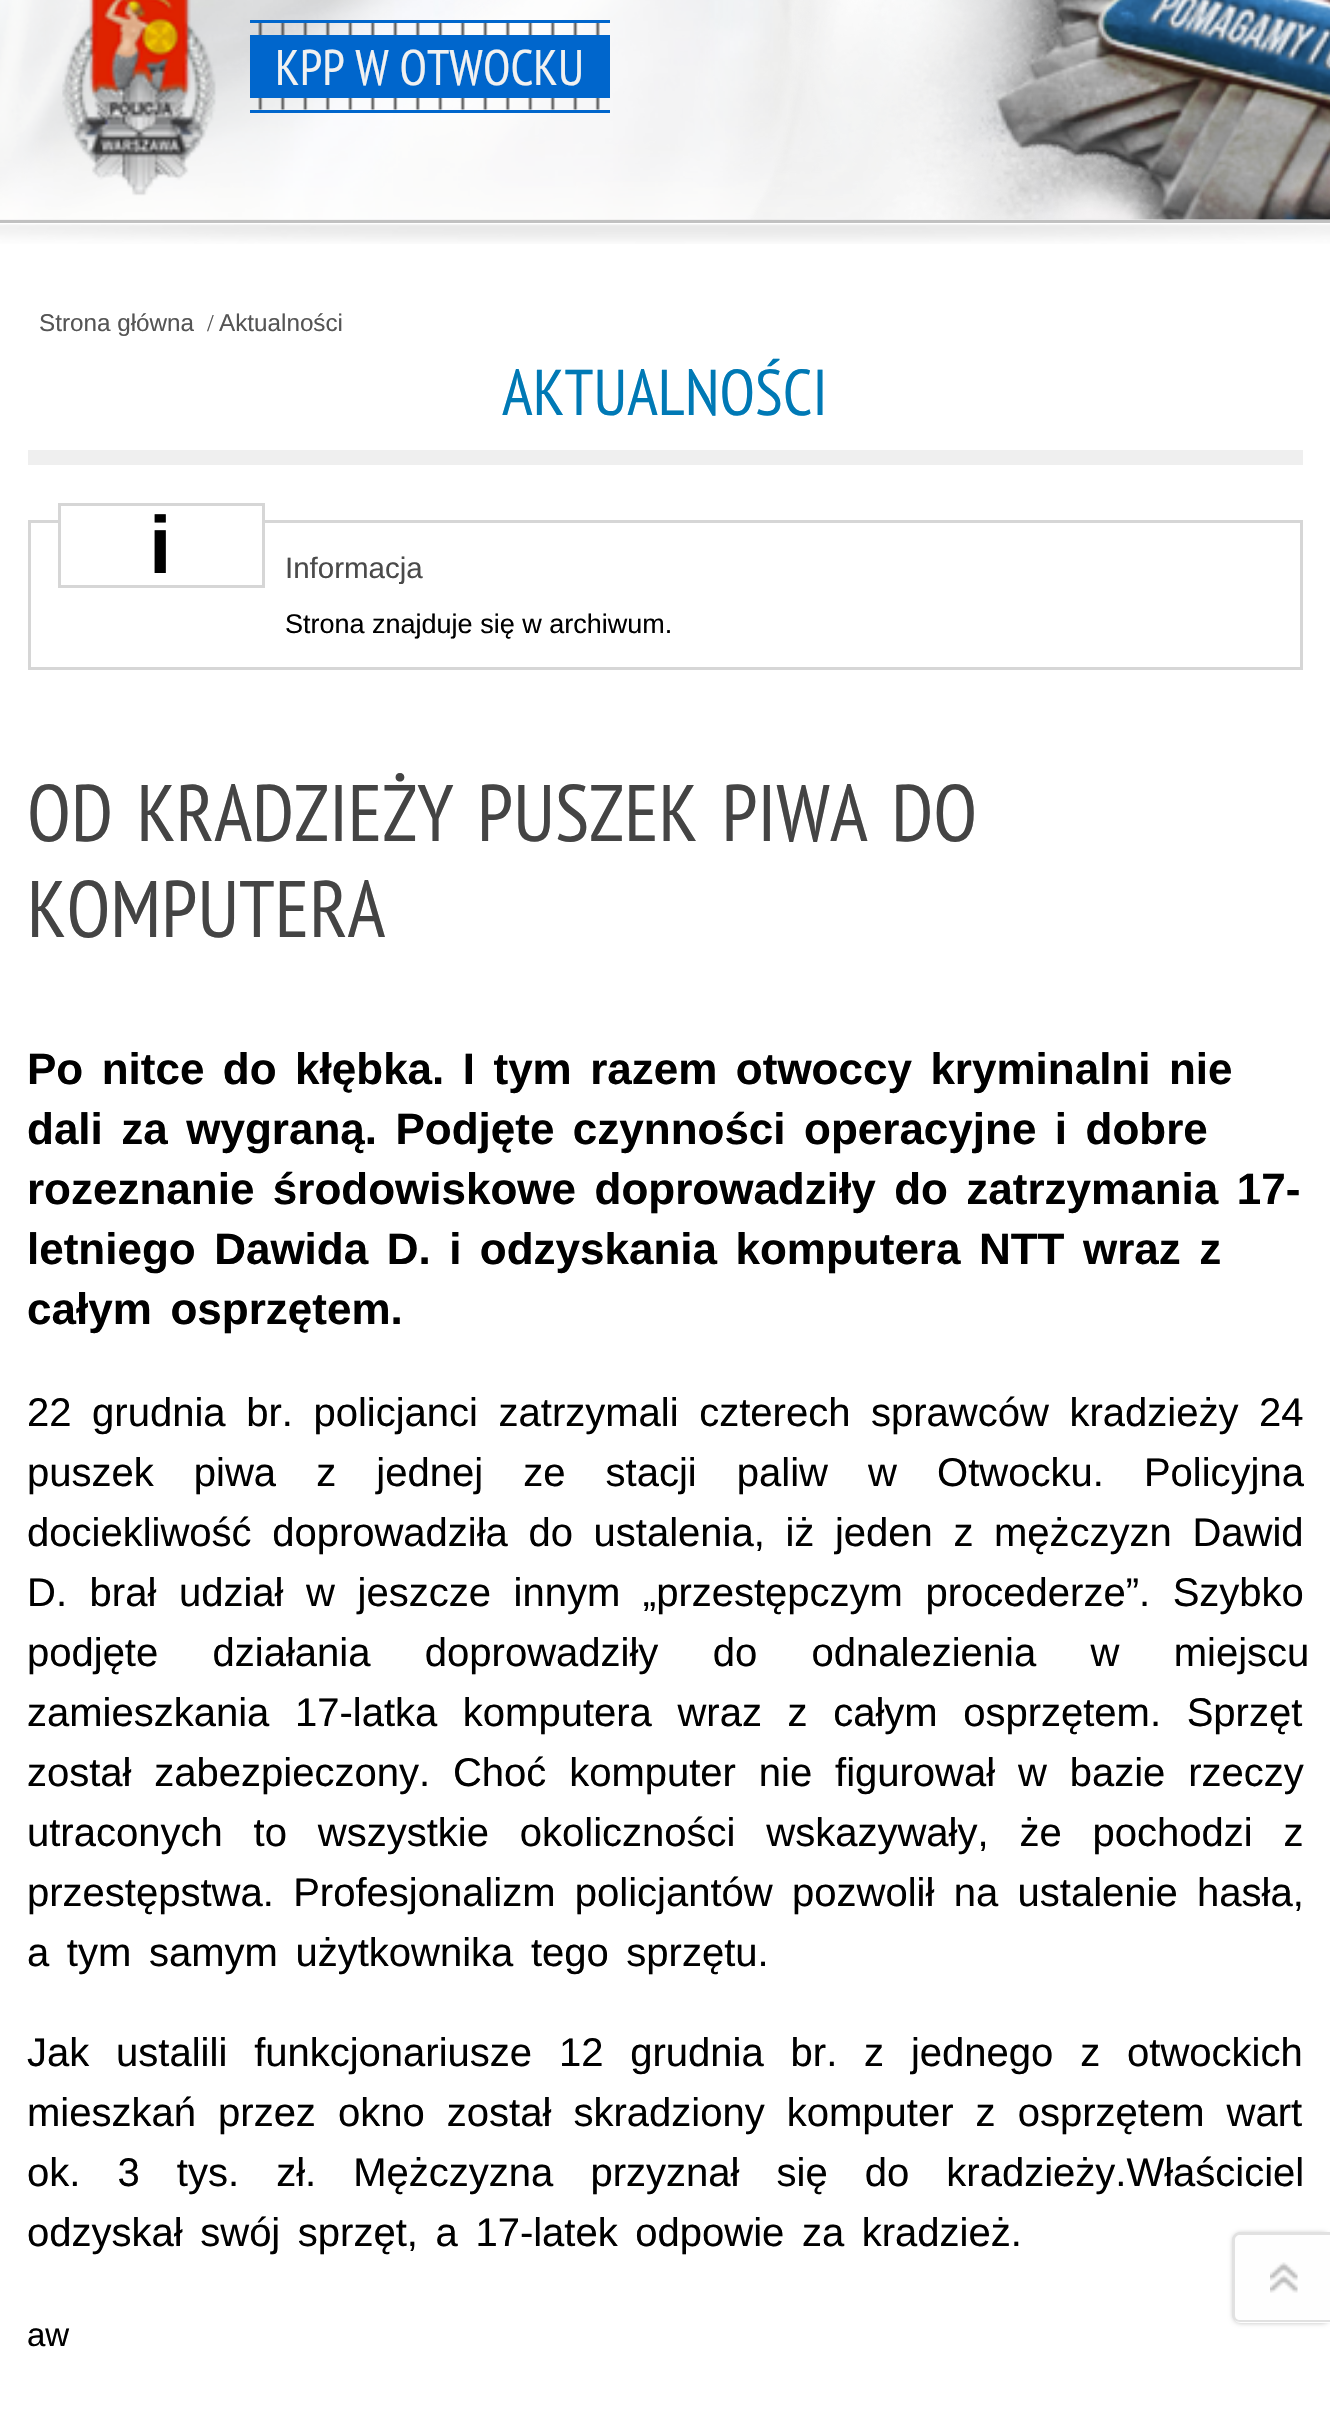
void draw(SkCanvas* canvas) {
	SkPaint paint;
	paint.setAntiAlias(true);
	auto spacedText = [&](const char* s, float x, float y, const SkFont& font, const SkPaint& ink, float letter, float word) {
		std::vector<SkGlyphID> glyphs(font.countText(s, strlen(s), SkTextEncoding::kUTF8));
		std::vector<float> xs(glyphs.size());
		font.textToGlyphs(s, strlen(s), SkTextEncoding::kUTF8, glyphs);
		font.getXPos(glyphs, xs, x);
		float extra = 0;
		for (size_t i = 0; i < glyphs.size(); i++) {
			xs[i] += extra;
			extra += letter + word * (glyphs[i] == font.unicharToGlyph(' '));
		}
		canvas->drawTextBlob(SkTextBlob::MakeFromPosHGlyphs(glyphs, xs, y, font), 0, 0, ink);
	};
	auto svgPath = [&](const char* data, bool evenOdd = false) {
		SkPath result = *SkParsePath::FromSVGString(data);
		if (evenOdd) result.setFillType(SkPathFillType::kEvenOdd);
		return result;
	};
	canvas->clear(0xffffffff);
	canvas->drawImageRect(SkImages::DeferredFromEncodedData(SkData::MakeFromFileName("img1.png")), SkRect::MakeXYWH(0, 0, 1330, 220), SkSamplingOptions());
	canvas->drawImageRect(SkImages::DeferredFromEncodedData(SkData::MakeFromFileName("img2.png")), SkRect::MakeXYWH(0, 224, 1330, 20), SkSamplingOptions());
	canvas->drawImageRect(SkImages::DeferredFromEncodedData(SkData::MakeFromFileName("img3.png")), SkRect::MakeXYWH(0, 0, 1330, 220), SkSamplingOptions());
	paint.setColor(0xffc1c1c1);
	canvas->drawRect(SkRect::MakeXYWH(0, 220, 1330, 3), paint);
	canvas->drawImageRect(SkImages::DeferredFromEncodedData(SkData::MakeFromFileName("img4.png")), SkRect::MakeXYWH(258, 23, 342, 87), SkSamplingOptions());
	paint.setColor(0xff0066cc);
	canvas->drawRect(SkRect::MakeXYWH(250, 20, 360, 3), paint);
	canvas->drawRect(SkRect::MakeXYWH(250, 110, 360, 3), paint);
	canvas->drawImageRect(SkImages::DeferredFromEncodedData(SkData::MakeFromFileName("img5.png")), SkRect::MakeXYWH(62, 0, 154, 196), SkSamplingOptions());
	canvas->drawRect(SkRect::MakeXYWH(250, 35, 360, 63), paint);
	SkFont f1(fontMgr->matchFamilyStyle("PT Sans Narrow", SkFontStyle::Normal()), 50);
	f1.setSubpixel(true);
	paint.setColor(0xfff1f1f1);
	canvas->drawString("KPP W OTWOCKU", 275, 85, f1, paint);
	SkFont f2(fontMgr->matchFamilyStyle("Liberation Sans", SkFontStyle::Normal()), 24.25);
	f2.setSubpixel(true);
	paint.setColor(0xff555555);
	canvas->drawString("Strona główna", 39, 331, f2, paint);
	SkFont f3(fontMgr->matchFamilyStyle("Liberation Serif", SkFontStyle::Normal()), 24.25);
	f3.setSubpixel(true);
	canvas->drawString("/", 207, 331, f3, paint);
	canvas->drawString("Aktualności", 219, 331, f2, paint);
	paint.setColor(0xffefefef);
	canvas->drawRect(SkRect::MakeXYWH(28, 450, 1275, 15), paint);
	SkFont f4(fontMgr->matchFamilyStyle("PT Sans Narrow", SkFontStyle::Normal()), 64.75);
	f4.setSubpixel(true);
	paint.setColor(0xff0079b5);
	canvas->drawString("AKTUALNOŚCI", 502, 415, f4, paint);
	paint.setStroke(true);
	paint.setStrokeWidth(3);
	paint.setColor(0xffd6d6d6);
	canvas->drawRect(SkRect::MakeXYWH(29.5, 521.5, 1272, 147), paint);
	paint.setStroke(false);
	paint.setColor(0xffffffff);
	canvas->drawRect(SkRect::MakeXYWH(61, 520, 201, 3), paint);
	paint.setStroke(true);
	paint.setColor(0xffd6d6d6);
	canvas->drawRect(SkRect::MakeXYWH(59.5, 504.5, 204, 82), paint);
	SkFont f5(fontMgr->matchFamilyStyle("Liberation Sans", SkFontStyle::Bold()), 81);
	f5.setSubpixel(true);
	paint.setStroke(false);
	paint.setColor(0xff000000);
	canvas->drawString("i", 149, 573, f5, paint);
	SkFont f6(fontMgr->matchFamilyStyle("Liberation Sans", SkFontStyle::Normal()), 29.5);
	f6.setSubpixel(true);
	paint.setColor(0xff4a4a4a);
	canvas->drawString("Informacja", 285, 578, f6, paint);
	SkFont f7(fontMgr->matchFamilyStyle("Liberation Sans", SkFontStyle::Normal()), 27);
	f7.setSubpixel(true);
	paint.setColor(0xff000000);
	canvas->drawString("Strona znajduje się w archiwum.", 285, 633, f7, paint);
	SkFont f8(fontMgr->matchFamilyStyle("PT Sans Narrow", SkFontStyle::Normal()), 80);
	f8.setSubpixel(true);
	paint.setColor(0xff444444);
	spacedText("OD KRADZIEŻY PUSZEK PIWA DO", 27, 841, f8, paint, 0, 6.5);
	canvas->drawString("KOMPUTERA", 27, 937, f8, paint);
	SkFont f9(fontMgr->matchFamilyStyle("Liberation Sans", SkFontStyle::Bold()), 44);
	f9.setSubpixel(true);
	paint.setColor(0xff000000);
	spacedText("Po nitce do kłębka. I tym razem otwoccy kryminalni nie", 27, 1084, f9, paint, 0, 6.25);
	spacedText("dali za wygraną. Podjęte czynności operacyjne i dobre", 27, 1144, f9, paint, 0, 6.25);
	spacedText("rozeznanie środowiskowe doprowadziły do zatrzymania 17-", 27, 1204, f9, paint, 0, 6.25);
	spacedText("letniego Dawida D. i odzyskania komputera NTT wraz z", 27, 1264, f9, paint, 0, 6.25);
	spacedText("całym osprzętem.", 27, 1324, f9, paint, 0, 6.5);
	SkFont f10(fontMgr->matchFamilyStyle("Liberation Sans", SkFontStyle::Normal()), 40);
	f10.setSubpixel(true);
	spacedText("22 grudnia br. policjanci zatrzymali czterech sprawców kradzieży 24", 27, 1426, f10, paint, 0, 9.5);
	spacedText("puszek piwa z jednej ze stacji paliw w Otwocku. Policyjna", 27, 1486, f10, paint, 0, 29);
	spacedText("dociekliwość doprowadziła do ustalenia, iż jeden z mężczyzn Dawid", 27, 1546, f10, paint, 0, 9.5);
	spacedText("D. brał udział w jeszcze innym „przestępczym procederze”. Szybko", 27, 1606, f10, paint, 0, 11.5);
	spacedText("podjęte działania doprowadziły do odnalezienia w miejscu", 27, 1666, f10, paint, 0, 43.25);
	spacedText("zamieszkania 17-latka komputera wraz z całym osprzętem. Sprzęt", 27, 1726, f10, paint, 0, 14.5);
	spacedText("został zabezpieczony. Choć komputer nie figurował w bazie rzeczy", 27, 1786, f10, paint, 0, 11.75);
	spacedText("utraconych to wszystkie okoliczności wskazywały, że pochodzi z", 27, 1846, f10, paint, 0, 19.75);
	spacedText("przestępstwa. Profesjonalizm policjantów pozwolił na ustalenie hasła,", 27, 1906, f10, paint, 0, 8.25);
	spacedText("a tym samym użytkownika tego sprzętu.", 27, 1966, f10, paint, 0, 6.5);
	spacedText("Jak ustalili funkcjonariusze 12 grudnia br. z jednego z otwockich", 27, 2066, f10, paint, 0, 15.75);
	spacedText("mieszkań przez okno został skradziony komputer z osprzętem wart", 27, 2126, f10, paint, 0, 11);
	spacedText("ok. 3 tys. zł. Mężczyzna przyznał się do kradzieży.Właściciel", 27, 2186, f10, paint, 0, 26);
	spacedText("odzyskał swój sprzęt, a 17-latek odpowie za kradzież.", 27, 2246, f10, paint, 0, 6.5);
	SkFont f11(fontMgr->matchFamilyStyle("Liberation Sans", SkFontStyle::Normal()), 33);
	f11.setSubpixel(true);
	canvas->drawString("aw", 27, 2346, f11, paint);
	paint.setColor(0x40000000);
	paint.setMaskFilter(SkMaskFilter::MakeBlur(kNormal_SkBlurStyle, 2.5));
	canvas->drawRoundRect(SkRect::MakeXYWH(1233, 2233, 97, 90), 8, 8, paint);
	paint.setMaskFilter(nullptr);
	paint.setColor(0xfffefefe);
	canvas->drawPath(svgPath("M1241 2233H1330V2323H1241C1236.5 2323 1233 2319.5 1233 2315V2241C1233 2236.5 1236.5 2233 1241 2233Z"), paint);
	paint.setColor(0xffe1e1e1);
	canvas->drawPath(svgPath("M1240 2232H1330V2322H1240C1236 2322 1232 2319 1232 2315V2240C1232 2236 1236 2232 1240 2232ZM1240 2235H1330V2320H1240C1237 2320 1235 2318 1235 2315V2240C1235 2237 1237 2235 1240 2235Z", true), paint);
	canvas->drawImageRect(SkImages::DeferredFromEncodedData(SkData::MakeFromFileName("img6.png")), SkRect::MakeXYWH(1270, 2262, 28, 31), SkSamplingOptions());
}
